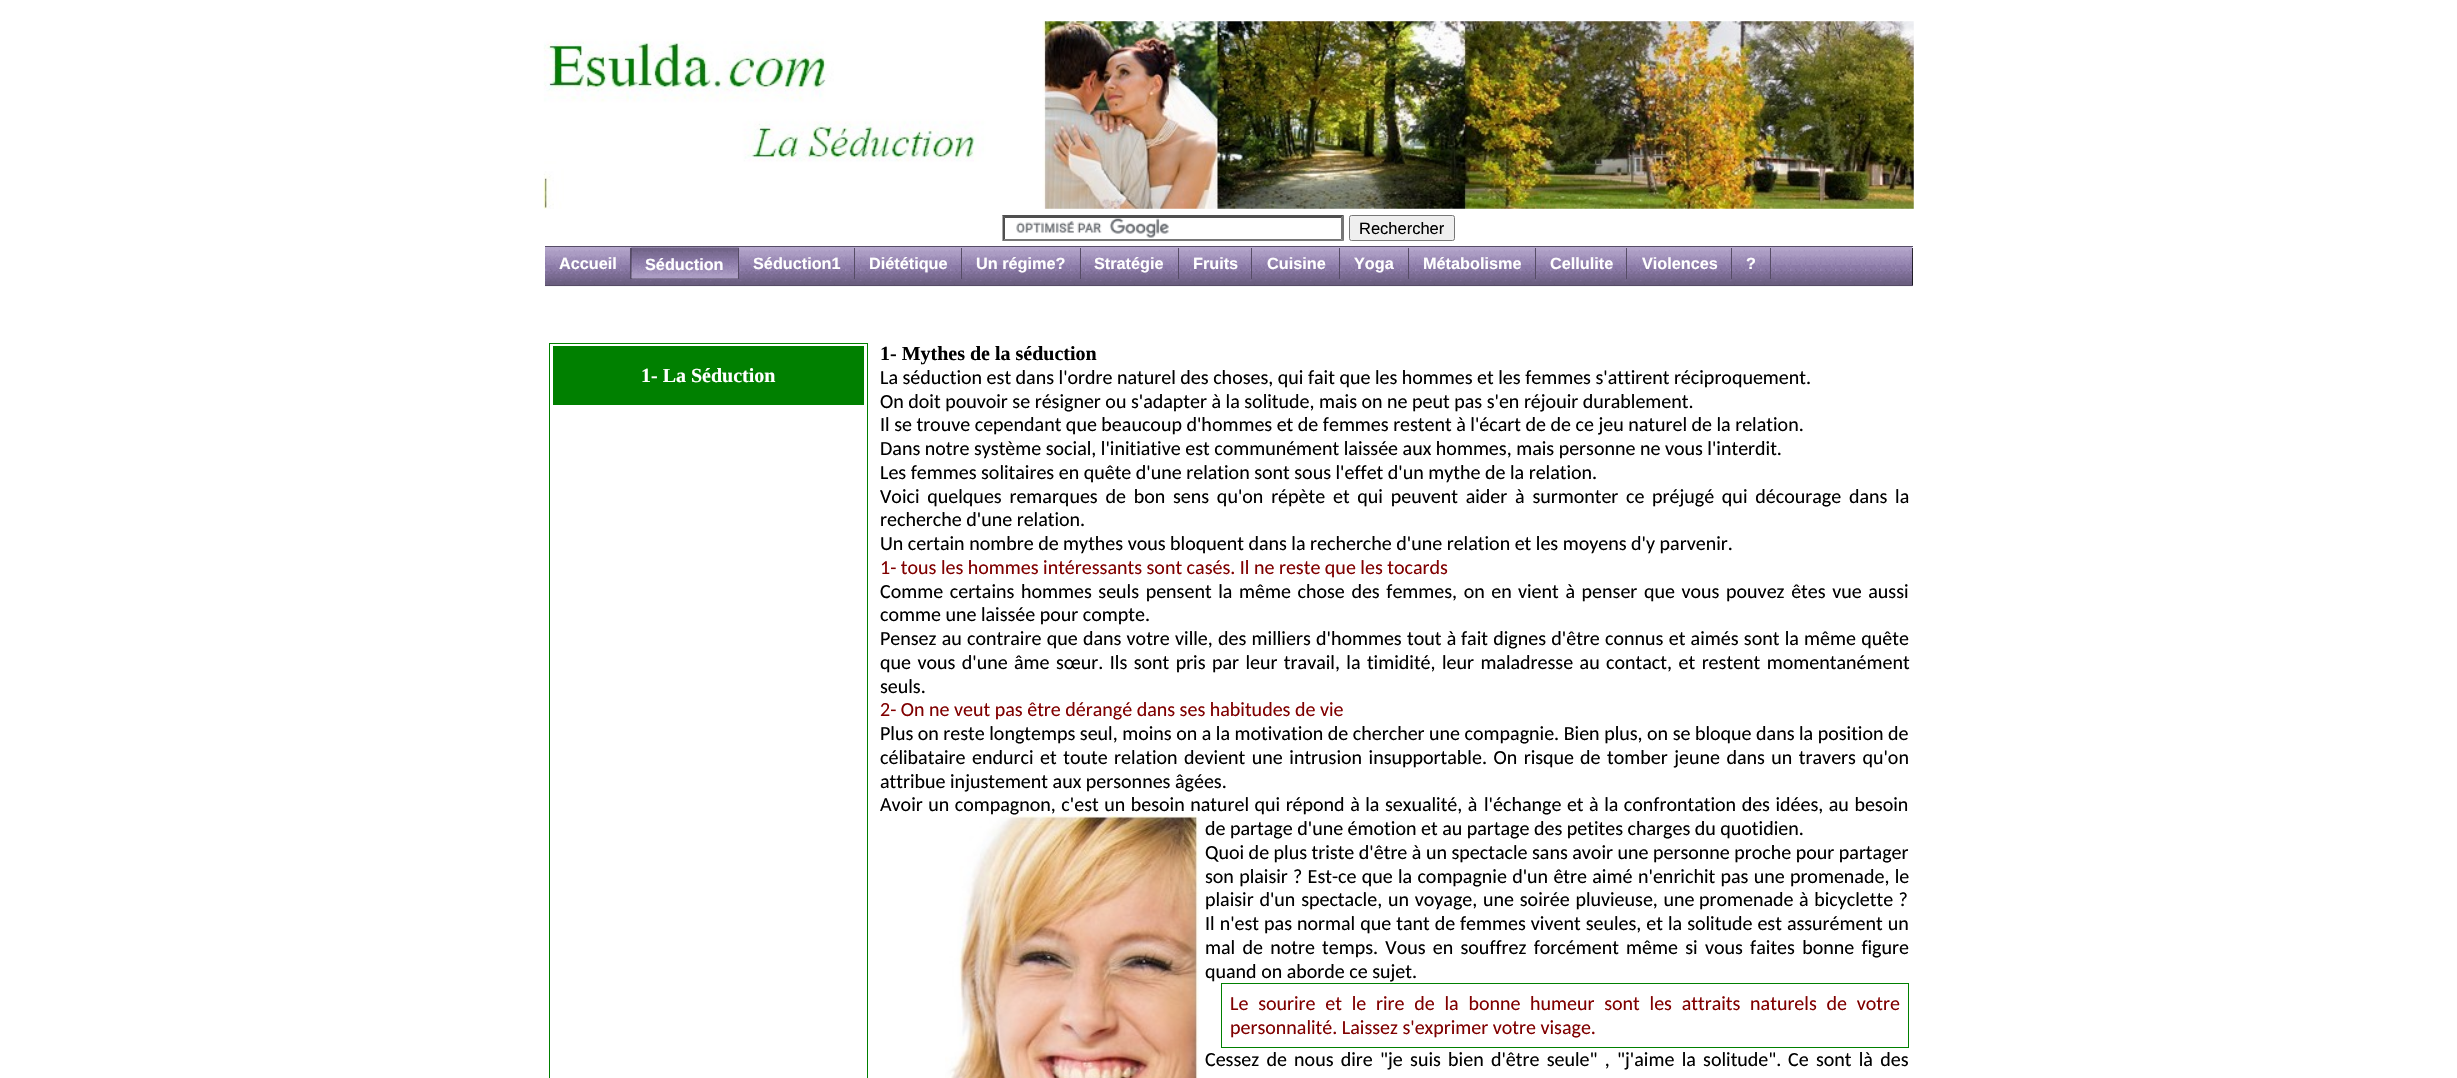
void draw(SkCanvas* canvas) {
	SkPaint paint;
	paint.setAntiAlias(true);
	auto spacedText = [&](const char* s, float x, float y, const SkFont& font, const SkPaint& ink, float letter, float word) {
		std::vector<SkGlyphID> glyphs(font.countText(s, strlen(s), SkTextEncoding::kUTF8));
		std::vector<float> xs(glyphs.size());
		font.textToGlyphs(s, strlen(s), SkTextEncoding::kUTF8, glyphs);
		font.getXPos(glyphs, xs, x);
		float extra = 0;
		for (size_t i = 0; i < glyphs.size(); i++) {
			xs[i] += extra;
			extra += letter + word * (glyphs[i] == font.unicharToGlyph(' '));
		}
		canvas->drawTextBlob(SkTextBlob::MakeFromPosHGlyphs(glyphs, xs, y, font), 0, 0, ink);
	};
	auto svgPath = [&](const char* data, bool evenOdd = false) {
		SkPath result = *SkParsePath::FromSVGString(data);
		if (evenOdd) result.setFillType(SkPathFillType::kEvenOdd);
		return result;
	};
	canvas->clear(0xffffffff);
	canvas->drawImageRect(SkImages::DeferredFromEncodedData(SkData::MakeFromFileName("img1.png")), SkRect::MakeXYWH(543, 21, 1371, 188), SkSamplingOptions());
	canvas->drawImageRect(SkImages::DeferredFromEncodedData(SkData::MakeFromFileName("img2.png")), SkRect::MakeXYWH(1016, 218, 153, 20), SkSamplingOptions());
	paint.setColor(0xff4f4f4f);
	canvas->drawPath(svgPath("M1002 215H1344L1341 218H1005Z"), paint);
	paint.setColor(0xff767676);
	canvas->drawPath(svgPath("M1344 215V241L1341 239V217.5Z"), paint);
	canvas->drawPath(svgPath("M1344 241H1002L1005 239H1341Z"), paint);
	paint.setColor(0xff4f4f4f);
	canvas->drawPath(svgPath("M1002.5 241V215L1005 217.5V239Z"), paint);
	paint.setColor(0xffefefef);
	canvas->drawRoundRect(SkRect::MakeXYWH(1349.5, 215.5, 105, 25), 2, 2, paint);
	paint.setStroke(true);
	paint.setStrokeWidth(1);
	paint.setColor(0xff767676);
	canvas->drawRoundRect(SkRect::MakeXYWH(1349.5, 215.5, 105, 25), 2, 2, paint);
	SkFont f1(fontMgr->matchFamilyStyle("Liberation Sans", SkFontStyle::Normal()), 16.5);
	f1.setSubpixel(true);
	paint.setStroke(false);
	paint.setColor(0xff000000);
	canvas->drawString("Rechercher", 1359, 234, f1, paint);
	canvas->drawRect(SkRect::MakeXYWH(1912, 248, 1, 37), paint);
	canvas->drawImageRect(SkImages::DeferredFromEncodedData(SkData::MakeFromFileName("img3.png")), SkRect::MakeXYWH(545, 247, 1368, 40), SkSamplingOptions());
	paint.setColor(0xff564c66);
	canvas->drawRect(SkRect::MakeXYWH(545, 246, 1368, 1), paint);
	canvas->drawRect(SkRect::MakeXYWH(545, 285, 1368, 1), paint);
	canvas->drawRect(SkRect::MakeXYWH(630, 248, 1, 31), paint);
	SkFont f2(fontMgr->matchFamilyStyle("Liberation Sans", SkFontStyle::Bold()), 16.25);
	f2.setSubpixel(true);
	paint.setColor(0xffffffff);
	canvas->drawString("Accueil", 559, 269, f2, paint);
	paint.setColor(0xff000000);
	canvas->drawRect(SkRect::MakeXYWH(631, 248, 107, 31), paint);
	canvas->drawImageRect(SkImages::DeferredFromEncodedData(SkData::MakeFromFileName("img4.png")), SkRect::MakeXYWH(631, 247, 108, 32), SkSamplingOptions());
	paint.setColor(0xff564c66);
	canvas->drawRect(SkRect::MakeXYWH(738, 248, 1, 31), paint);
	paint.setColor(0xffffffff);
	canvas->drawString("Séduction", 645, 270, f2, paint);
	paint.setColor(0xff564c66);
	canvas->drawRect(SkRect::MakeXYWH(854, 248, 1, 31), paint);
	paint.setColor(0xffffffff);
	canvas->drawString("Séduction1", 753, 269, f2, paint);
	paint.setColor(0xff564c66);
	canvas->drawRect(SkRect::MakeXYWH(961, 248, 1, 31), paint);
	paint.setColor(0xffffffff);
	canvas->drawString("Diététique", 869, 269, f2, paint);
	paint.setColor(0xff564c66);
	canvas->drawRect(SkRect::MakeXYWH(1080, 248, 1, 31), paint);
	paint.setColor(0xffffffff);
	canvas->drawString("Un régime?", 976, 269, f2, paint);
	paint.setColor(0xff564c66);
	canvas->drawRect(SkRect::MakeXYWH(1178, 248, 1, 31), paint);
	paint.setColor(0xffffffff);
	canvas->drawString("Stratégie", 1094, 269, f2, paint);
	paint.setColor(0xff564c66);
	canvas->drawRect(SkRect::MakeXYWH(1251, 248, 1, 31), paint);
	paint.setColor(0xffffffff);
	canvas->drawString("Fruits", 1193, 269, f2, paint);
	paint.setColor(0xff564c66);
	canvas->drawRect(SkRect::MakeXYWH(1339, 248, 1, 31), paint);
	paint.setColor(0xffffffff);
	canvas->drawString("Cuisine", 1267, 269, f2, paint);
	paint.setColor(0xff564c66);
	canvas->drawRect(SkRect::MakeXYWH(1408, 248, 1, 31), paint);
	paint.setColor(0xffffffff);
	canvas->drawString("Yoga", 1354, 269, f2, paint);
	paint.setColor(0xff564c66);
	canvas->drawRect(SkRect::MakeXYWH(1535, 248, 1, 31), paint);
	paint.setColor(0xffffffff);
	canvas->drawString("Métabolisme", 1423, 269, f2, paint);
	paint.setColor(0xff564c66);
	canvas->drawRect(SkRect::MakeXYWH(1626, 248, 1, 31), paint);
	paint.setColor(0xffffffff);
	canvas->drawString("Cellulite", 1550, 269, f2, paint);
	paint.setColor(0xff564c66);
	canvas->drawRect(SkRect::MakeXYWH(1731, 248, 1, 31), paint);
	paint.setColor(0xffffffff);
	canvas->drawString("Violences", 1642, 269, f2, paint);
	paint.setColor(0xff564c66);
	canvas->drawRect(SkRect::MakeXYWH(1770, 248, 1, 31), paint);
	paint.setColor(0xffffffff);
	canvas->drawString("?", 1746, 269, f2, paint);
	paint.setStroke(true);
	paint.setColor(0xff008000);
	canvas->drawRect(SkRect::MakeXYWH(549.5, 343.5, 318, 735), paint);
	paint.setStroke(false);
	canvas->drawRect(SkRect::MakeXYWH(553, 346, 311, 59), paint);
	SkFont f3(fontMgr->matchFamilyStyle("Liberation Serif", SkFontStyle::Bold()), 20);
	f3.setSubpixel(true);
	paint.setColor(0xffffffff);
	canvas->drawString("1- La Séduction", 641, 382, f3, paint);
	paint.setColor(0xff000000);
	canvas->drawString("1- Mythes de la séduction", 880, 360, f3, paint);
	SkFont f4(fontMgr->matchFamilyStyle("Carlito", SkFontStyle::Normal()), 20);
	f4.setSubpixel(true);
	canvas->drawString("La séduction est dans l'ordre naturel des choses, qui fait que les hommes et les femmes s'attirent réciproquement.", 880, 384, f4, paint);
	canvas->drawString("On doit pouvoir se résigner ou s'adapter à la solitude, mais on ne peut pas s'en réjouir durablement.", 880, 408, f4, paint);
	canvas->drawString("Il se trouve cependant que beaucoup d'hommes et de femmes restent à l'écart de de ce jeu naturel de la relation.", 880, 431, f4, paint);
	canvas->drawString("Dans notre système social, l'initiative est communément laissée aux hommes, mais personne ne vous l'interdit.", 880, 455, f4, paint);
	canvas->drawString("Les femmes solitaires en quête d'une relation sont sous l'effet d'un mythe de la relation.", 880, 479, f4, paint);
	spacedText("Voici quelques remarques de bon sens qu'on répète et qui peuvent aider à surmonter ce", 880, 503, f4, paint, 0, 3.25);
	spacedText("préjugé qui décourage dans la", 1652, 503, f4, paint, 0, 3.25);
	canvas->drawString("recherche d'une relation.", 880, 526, f4, paint);
	canvas->drawString("Un certain nombre de mythes vous bloquent dans la recherche d'une relation et les moyens d'y parvenir.", 880, 550, f4, paint);
	paint.setColor(0xff800000);
	canvas->drawString("1- tous les hommes intéressants sont casés. Il ne reste que les tocards", 880, 574, f4, paint);
	paint.setColor(0xff000000);
	spacedText("Comme certains hommes seuls pensent la même chose des femmes, on en", 880, 598, f4, paint, 0, 2.1);
	spacedText("vient à penser que vous pouvez êtes vue aussi", 1518, 598, f4, paint, 0, 2.1);
	canvas->drawString("comme une laissée pour compte.", 880, 621, f4, paint);
	spacedText("Pensez au contraire que dans votre ville, des milliers d'hommes tout à", 880, 645, f4, paint, 0, 0.75);
	spacedText("fait dignes d'être connus et aimés sont la même quête", 1461, 645, f4, paint, 0, 0.75);
	spacedText("que vous d'une âme", 880, 669, f4, paint, 0, 1.9);
	spacedText("sœur. Ils sont pris par leur travail, la timidité, leur maladresse au", 1056, 669, f4, paint, 0, 1.9);
	spacedText("contact, et restent momentanément", 1606, 669, f4, paint, 0, 2);
	canvas->drawString("seuls.", 880, 693, f4, paint);
	paint.setColor(0xff800000);
	canvas->drawString("2- On ne veut pas être dérangé dans ses habitudes de vie", 880, 716, f4, paint);
	paint.setColor(0xff000000);
	canvas->drawString("Plus on reste longtemps seul, moins on a la motivation de chercher une compagnie. Bien plus, on se bloque dans la position de", 880, 740, f4, paint);
	canvas->drawString("célibataire", 880, 764, f4, paint);
	spacedText("endurci et toute relation devient une intrusion insupportable. On risque", 972, 764, f4, paint, 0, 2);
	spacedText("de tomber jeune dans un travers qu'on", 1580, 764, f4, paint, 0, 2);
	canvas->drawString("attribue injustement aux personnes âgées.", 880, 788, f4, paint);
	spacedText("Avoir un compagnon, c'est un besoin naturel qui répond à la sexualité, à", 880, 811, f4, paint, 0, 1);
	spacedText("l'échange et à la confrontation des idées, au besoin", 1484, 811, f4, paint, 0, 1);
	canvas->drawImageRect(SkImages::DeferredFromEncodedData(SkData::MakeFromFileName("img5.png")), SkRect::MakeXYWH(945, 816, 255, 262), SkSamplingOptions());
	canvas->drawString("de partage d'une émotion et au partage des petites charges du quotidien.", 1205, 835, f4, paint);
	canvas->drawString("Quoi de plus triste d'être à un spectacle sans avoir une personne proche pour partager", 1205, 859, f4, paint);
	spacedText("son plaisir ? Est-ce que la compagnie d'un être aimé", 1205, 883, f4, paint, 0, 0.75);
	spacedText("n'enrichit pas une promenade, le", 1638, 883, f4, paint, 0, 0.75);
	spacedText("plaisir d'un spectacle, un voyage, une soirée pluvieuse, une", 1205, 906, f4, paint, 0, 1.25);
	spacedText("promenade à bicyclette ?", 1699, 906, f4, paint, 0, 1);
	spacedText("Il n'est pas normal que tant de", 1205, 930, f4, paint, 0, 0.5);
	spacedText("femmes vivent seules, et la solitude est assurément un", 1460, 930, f4, paint, 0, 0.5);
	spacedText("mal de notre", 1205, 954, f4, paint, 0, 2.75);
	spacedText("temps. Vous en souffrez forcément même si vous faites bonne figure", 1322, 954, f4, paint, 0, 2.75);
	canvas->drawString("quand on aborde ce sujet.", 1205, 978, f4, paint);
	paint.setStroke(true);
	paint.setColor(0xff008000);
	canvas->drawRect(SkRect::MakeXYWH(1221.5, 983.5, 687, 64), paint);
	paint.setStroke(false);
	paint.setColor(0xff800000);
	spacedText("Le sourire et le rire de la bonne", 1230, 1010, f4, paint, 0, 5.25);
	spacedText("humeur sont les attraits naturels de votre", 1530, 1010, f4, paint, 0, 5.25);
	canvas->drawString("personnalité. Laissez s'exprimer votre visage.", 1230, 1034, f4, paint);
	paint.setColor(0xff000000);
	spacedText("Cessez de nous dire \"je suis bien d'être seule\" , \"j'aime la solitude\".", 1205, 1066, f4, paint, 0, 2.75);
	spacedText("Ce sont là des", 1788, 1066, f4, paint, 0, 2.75);
}
